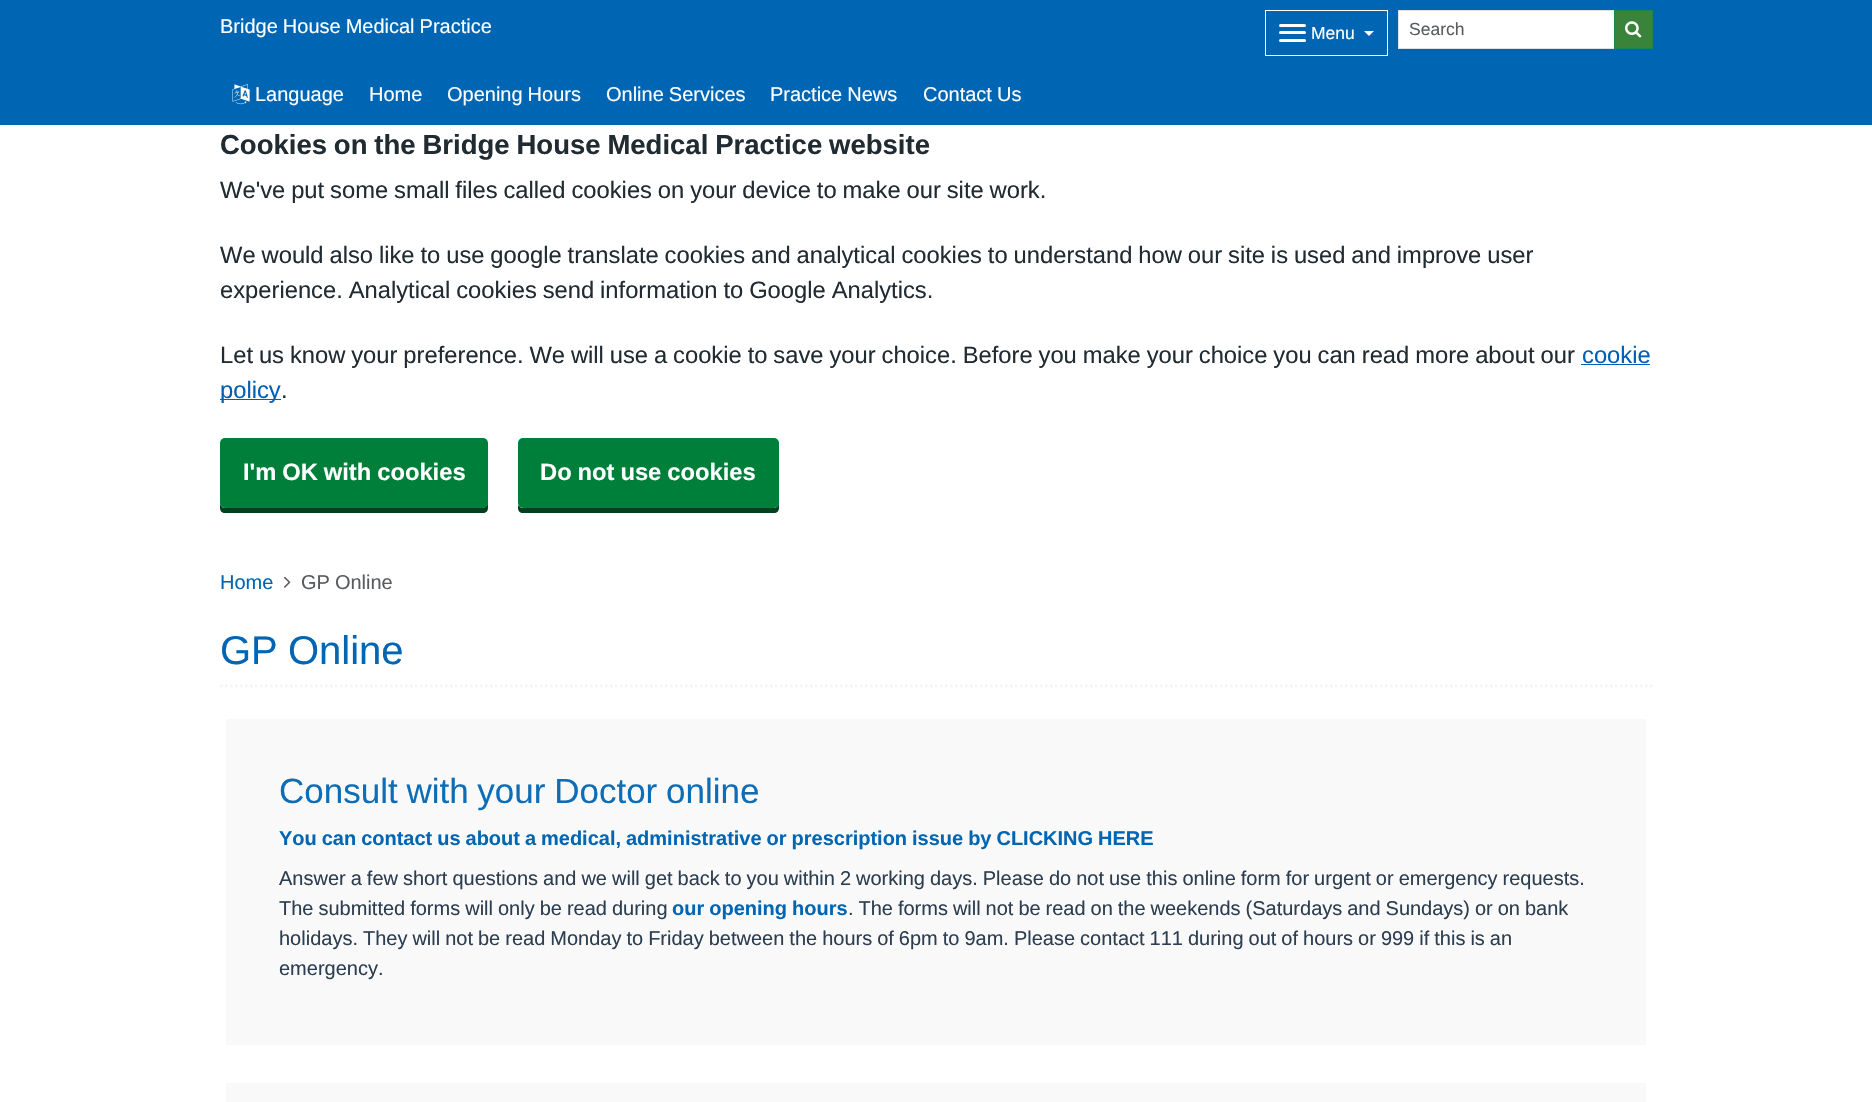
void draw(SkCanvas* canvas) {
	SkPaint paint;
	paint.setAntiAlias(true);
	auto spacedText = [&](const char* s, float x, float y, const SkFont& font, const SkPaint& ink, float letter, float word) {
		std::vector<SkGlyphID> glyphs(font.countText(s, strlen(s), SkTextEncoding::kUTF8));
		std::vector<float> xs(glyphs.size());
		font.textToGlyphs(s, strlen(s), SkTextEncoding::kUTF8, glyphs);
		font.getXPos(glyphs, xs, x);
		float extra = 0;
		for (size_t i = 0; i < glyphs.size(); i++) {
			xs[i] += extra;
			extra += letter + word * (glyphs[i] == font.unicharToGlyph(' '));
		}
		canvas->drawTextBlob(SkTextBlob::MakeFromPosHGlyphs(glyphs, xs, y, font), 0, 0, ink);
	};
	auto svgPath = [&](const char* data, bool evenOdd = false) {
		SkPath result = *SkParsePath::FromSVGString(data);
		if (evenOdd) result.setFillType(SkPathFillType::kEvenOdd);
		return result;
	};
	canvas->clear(0xffffffff);
	paint.setColor(0xff0066b3);
	canvas->drawRect(SkRect::MakeXYWH(0, 0, 1872, 125), paint);
	SkFont f1(fontMgr->matchFamilyStyle("Liberation Sans", SkFontStyle::Normal()), 20);
	f1.setSubpixel(true);
	paint.setColor(0xffffffff);
	spacedText("Bridge House Medical Practice", 220, 33, f1, paint, 0, -0.55);
	paint.setStroke(true);
	paint.setStrokeWidth(1);
	canvas->drawRect(SkRect::MakeXYWH(1265.5, 10.5, 122, 45), paint);
	paint.setStroke(false);
	canvas->drawRoundRect(SkRect::MakeXYWH(1279, 24, 27, 3), 1.5, 1.5, paint);
	canvas->drawRoundRect(SkRect::MakeXYWH(1279, 31, 27, 3), 1.5, 1.5, paint);
	canvas->drawRoundRect(SkRect::MakeXYWH(1279, 39, 27, 3), 1.5, 1.5, paint);
	SkFont f2(fontMgr->matchFamilyStyle("Liberation Sans", SkFontStyle::Normal()), 17.5);
	f2.setSubpixel(true);
	canvas->drawString("Menu", 1311, 39, f2, paint);
	canvas->drawPath(svgPath("M1364 31H1374L1369 36Z"), paint);
	canvas->drawRect(SkRect::MakeXYWH(1398.5, 10.5, 216, 38), paint);
	paint.setStroke(true);
	paint.setColor(0xffdee2e6);
	canvas->drawRect(SkRect::MakeXYWH(1398.5, 10.5, 216, 38), paint);
	paint.setStroke(false);
	paint.setColor(0xff595c5f);
	canvas->drawString("Search", 1409, 35, f2, paint);
	paint.setColor(0xff3a833a);
	canvas->drawRect(SkRect::MakeXYWH(1614.5, 10.5, 38, 38), paint);
	paint.setStroke(true);
	paint.setColor(0xff198754);
	canvas->drawRect(SkRect::MakeXYWH(1614.5, 10.5, 38, 38), paint);
	canvas->drawImageRect(SkImages::DeferredFromEncodedData(SkData::MakeFromFileName("img1.png")), SkRect::MakeXYWH(1625, 21, 17, 17), SkSamplingOptions());
	canvas->drawImageRect(SkImages::DeferredFromEncodedData(SkData::MakeFromFileName("img2.png")), SkRect::MakeXYWH(232, 84, 18, 21), SkSamplingOptions());
	paint.setStroke(false);
	paint.setColor(0xffffffff);
	canvas->drawString("Language", 255, 101, f1, paint);
	canvas->drawString("Home", 369, 101, f1, paint);
	spacedText("Opening Hours", 447, 101, f1, paint, 0, -0.55);
	spacedText("Online Services", 606, 101, f1, paint, 0, -0.55);
	spacedText("Practice News", 770, 101, f1, paint, 0, -0.55);
	spacedText("Contact Us", 923, 101, f1, paint, 0, -0.55);
	paint.setColor(0xff0066b3);
	canvas->drawString("Home", 220, 589, f1, paint);
	canvas->drawImageRect(SkImages::DeferredFromEncodedData(SkData::MakeFromFileName("img3.png")), SkRect::MakeXYWH(284, 576, 7, 12), SkSamplingOptions());
	paint.setColor(0xff595c5f);
	spacedText("GP Online", 301, 589, f1, paint, 0, -0.55);
	paint.setStroke(true);
	paint.setStrokeWidth(2.5);
	paint.setColor(0xfff4f4f4);
	paint.setPathEffect(SkDashPathEffect::Make({{2.5f, 2.5f}}, 0));
	canvas->drawPath(svgPath("M220 686H1652.5"), paint);
	paint.setPathEffect(nullptr);
	SkFont f3(fontMgr->matchFamilyStyle("Liberation Sans", SkFontStyle::Normal()), 40);
	f3.setSubpixel(true);
	paint.setStroke(false);
	paint.setColor(0xff0066b3);
	spacedText("GP Online", 220, 664, f3, paint, 0, -1);
	paint.setColor(0xfff9f9fa);
	canvas->drawRect(SkRect::MakeXYWH(226, 719, 1420, 326), paint);
	SkFont f4(fontMgr->matchFamilyStyle("Liberation Sans", SkFontStyle::Normal()), 35);
	f4.setSubpixel(true);
	paint.setColor(0xff0d6eb7);
	spacedText("Consult with your Doctor online", 279, 803, f4, paint, 0, -1);
	SkFont f5(fontMgr->matchFamilyStyle("Liberation Sans", SkFontStyle::Bold()), 20);
	f5.setSubpixel(true);
	paint.setColor(0xff0066b3);
	spacedText("You can contact us about a medical, administrative or prescription issue by CLICKING HERE", 279, 845, f5, paint, 0, -0.6);
	paint.setColor(0xff2c3e50);
	spacedText("Answer a few short questions and we will get back to you within 2 working days. Please do not use this online form for urgent or emergency requests.", 279, 885, f1, paint, 0, -0.55);
	spacedText("The submitted forms will only be read during", 279, 915, f1, paint, 0, -0.55);
	paint.setColor(0xff0066b3);
	spacedText("our opening hours", 672, 915, f5, paint, 0, -0.55);
	paint.setColor(0xff2c3e50);
	spacedText(". The forms will not be read on the weekends (Saturdays and Sundays) or on bank", 848, 915, f1, paint, 0, -0.6);
	spacedText("holidays. They will not be read Monday to Friday between the hours of 6pm to 9am. Please contact 111 during out of hours or 999 if this is an", 279, 945, f1, paint, 0, -0.55);
	canvas->drawString("emergency.", 279, 975, f1, paint);
	paint.setColor(0xfff9f9fa);
	canvas->drawRect(SkRect::MakeXYWH(226, 1083, 1420, 19), paint);
	SkFont f6(fontMgr->matchFamilyStyle("Liberation Sans", SkFontStyle::Bold()), 27.5);
	f6.setSubpixel(true);
	paint.setColor(0xff212b32);
	spacedText("Cookies on the Bridge House Medical Practice website", 220, 154, f6, paint, 0, -0.75);
	SkFont f7(fontMgr->matchFamilyStyle("Liberation Sans", SkFontStyle::Normal()), 23.75);
	f7.setSubpixel(true);
	spacedText("We've put some small files called cookies on your device to make our site work.", 220, 198, f7, paint, 0, -0.7);
	spacedText("We would also like to use google translate cookies and analytical cookies to understand how our site is used and improve user", 220, 263, f7, paint, 0, -0.7);
	spacedText("experience. Analytical cookies send information to Google Analytics.", 220, 298, f7, paint, 0, -0.7);
	spacedText("Let us know your preference. We will use a cookie to save your choice. Before you make your choice you can read more about our", 220, 363, f7, paint, 0, -0.7);
	paint.setColor(0xff005eb8);
	canvas->drawString("cookie", 1582, 363, f7, paint);
	canvas->drawRect(SkRect::MakeXYWH(1581, 364, 69, 1), paint);
	canvas->drawRect(SkRect::MakeXYWH(220, 399, 61, 1), paint);
	canvas->drawString("policy", 220, 398, f7, paint);
	paint.setColor(0xff212b32);
	canvas->drawString(".", 281, 398, f7, paint);
	paint.setColor(0xff00401e);
	canvas->drawPath(svgPath("M220 502V508C220 511 222 513 225 513H483C486 513 488 511 488 508V448V446V502C488 505 485 508 482 508H225C222 508 220 505 220 502Z"), paint);
	paint.setColor(0xff007f3b);
	canvas->drawRoundRect(SkRect::MakeXYWH(220, 438, 268, 70), 5, 5, paint);
	SkFont f8(fontMgr->matchFamilyStyle("Liberation Sans", SkFontStyle::Bold()), 23.75);
	f8.setSubpixel(true);
	paint.setColor(0xffffffff);
	spacedText("I'm OK with cookies", 243, 480, f8, paint, 0, -0.7);
	paint.setColor(0xff00401e);
	canvas->drawPath(svgPath("M518 505V508C518 511 520 513 523 513H774C777 513 779 511 779 508V446V502C779 505 777 508 774 508H522C521 508 519 506 518 505Z"), paint);
	paint.setColor(0xff007f3b);
	canvas->drawRoundRect(SkRect::MakeXYWH(518, 438, 261, 70), 5, 5, paint);
	paint.setColor(0xffffffff);
	spacedText("Do not use cookies", 540, 480, f8, paint, 0, -0.7);
}
